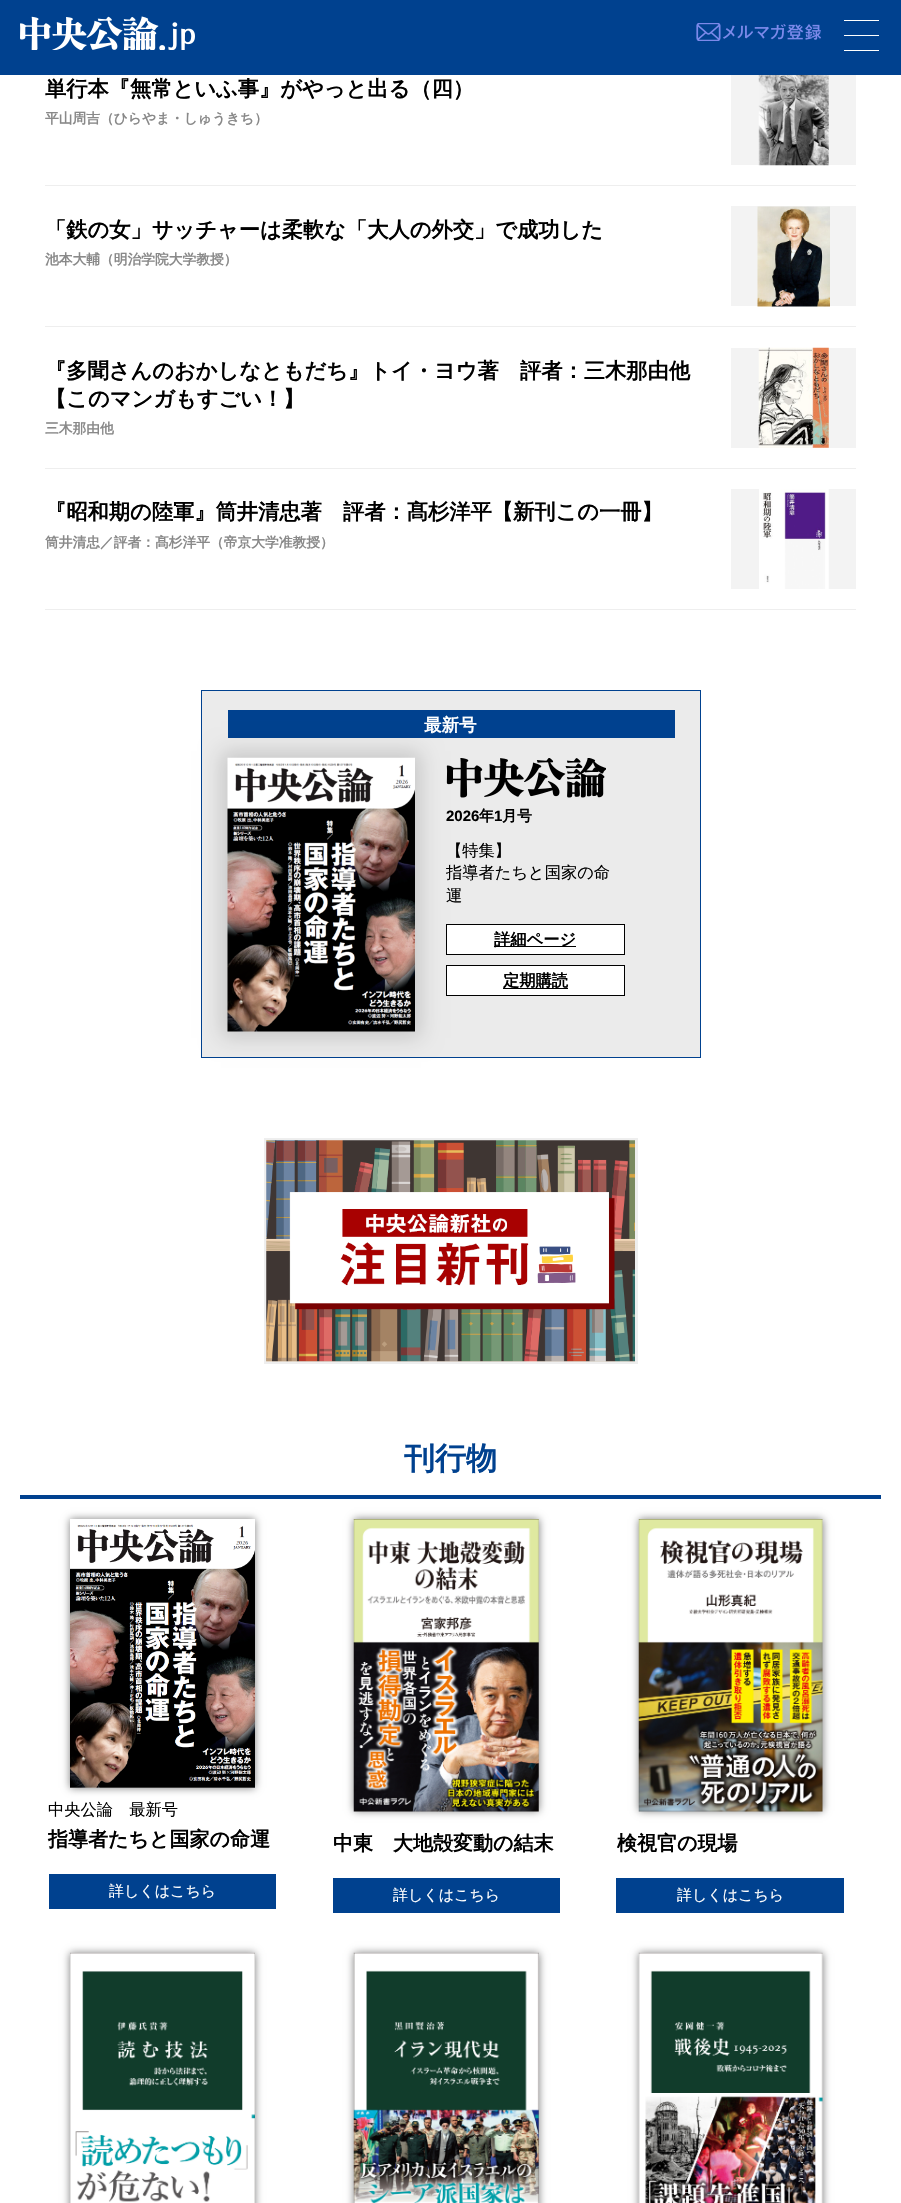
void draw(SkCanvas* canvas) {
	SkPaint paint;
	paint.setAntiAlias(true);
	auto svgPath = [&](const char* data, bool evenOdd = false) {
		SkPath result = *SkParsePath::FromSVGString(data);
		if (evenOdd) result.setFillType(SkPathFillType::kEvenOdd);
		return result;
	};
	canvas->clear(0xffffffff);
	paint.setColor(0xff00418f);
	canvas->drawRect(SkRect::MakeXYWH(0, 0, 901, 75), paint);
	canvas->drawImageRect(SkImages::DeferredFromEncodedData(SkData::MakeFromFileName("img1.png")), SkRect::MakeXYWH(20, 16, 175, 34), SkSamplingOptions());
	canvas->drawImageRect(SkImages::DeferredFromEncodedData(SkData::MakeFromFileName("img2.png")), SkRect::MakeXYWH(696, 23, 125, 18), SkSamplingOptions());
	paint.setColor(0xffffffff);
	canvas->drawRect(SkRect::MakeXYWH(844, 20, 35, 1), paint);
	canvas->drawRect(SkRect::MakeXYWH(844, 35, 35, 1), paint);
	canvas->drawRect(SkRect::MakeXYWH(844, 50, 35, 1), paint);
	paint.setColor(0xffeeeeee);
	canvas->drawRect(SkRect::MakeXYWH(45, 185, 811, 1), paint);
	SkFont f1(fontMgr->matchFamilyStyle("WenQuanYi Zen Hei", SkFontStyle::Bold()), 21.25);
	f1.setSubpixel(true);
	paint.setColor(0xff000000);
	canvas->drawString("単行本『無常といふ事』がやっと出る（四）", 45, 96, f1, paint);
	SkFont f2(fontMgr->matchFamilyStyle("WenQuanYi Zen Hei", SkFontStyle::Bold()), 13.75);
	f2.setSubpixel(true);
	paint.setColor(0xff898989);
	canvas->drawString("平山周吉（ひらやま・しゅうきち）", 45, 123, f2, paint);
	paint.setColor(0xfff3f3f3);
	canvas->drawRect(SkRect::MakeXYWH(731, 75, 125, 90), paint);
	canvas->drawImageRect(SkImages::DeferredFromEncodedData(SkData::MakeFromFileName("img3.png")), SkRect::MakeXYWH(758, 75, 71, 91), SkSamplingOptions());
	paint.setColor(0xffeeeeee);
	canvas->drawRect(SkRect::MakeXYWH(45, 326, 811, 1), paint);
	paint.setColor(0xff000000);
	canvas->drawString("「鉄の女」サッチャーは柔軟な「大人の外交」で成功した", 45, 237, f1, paint);
	paint.setColor(0xff898989);
	canvas->drawString("池本大輔（明治学院大学教授）", 45, 264, f2, paint);
	paint.setColor(0xfff3f3f3);
	canvas->drawRect(SkRect::MakeXYWH(731, 206, 125, 100), paint);
	canvas->drawImageRect(SkImages::DeferredFromEncodedData(SkData::MakeFromFileName("img4.png")), SkRect::MakeXYWH(757, 206, 73, 101), SkSamplingOptions());
	paint.setColor(0xffeeeeee);
	canvas->drawRect(SkRect::MakeXYWH(45, 468, 811, 1), paint);
	paint.setColor(0xff000000);
	canvas->drawString("『多聞さんのおかしなともだち』トイ・ヨウ著　評者：三木那由他", 45, 378, f1, paint);
	canvas->drawString("【このマンガもすごい！】", 45, 406, f1, paint);
	paint.setColor(0xff898989);
	canvas->drawString("三木那由他", 45, 433, f2, paint);
	paint.setColor(0xfff3f3f3);
	canvas->drawRect(SkRect::MakeXYWH(731, 348, 125, 100), paint);
	canvas->drawImageRect(SkImages::DeferredFromEncodedData(SkData::MakeFromFileName("img5.png")), SkRect::MakeXYWH(758, 347, 71, 101), SkSamplingOptions());
	paint.setColor(0xffeeeeee);
	canvas->drawRect(SkRect::MakeXYWH(45, 609, 811, 1), paint);
	paint.setColor(0xff000000);
	canvas->drawString("『昭和期の陸軍』筒井清忠著　評者：髙杉洋平【新刊この一冊】", 45, 519, f1, paint);
	paint.setColor(0xff898989);
	canvas->drawString("筒井清忠／評者：髙杉洋平（帝京大学准教授）", 45, 547, f2, paint);
	paint.setColor(0xfff3f3f3);
	canvas->drawRect(SkRect::MakeXYWH(731, 489, 125, 100), paint);
	canvas->drawImageRect(SkImages::DeferredFromEncodedData(SkData::MakeFromFileName("img6.png")), SkRect::MakeXYWH(759, 489, 70, 100), SkSamplingOptions());
	paint.setColor(0xffebebeb);
	canvas->drawRect(SkRect::MakeXYWH(201.5, 690.5, 499, 367), paint);
	paint.setStroke(true);
	paint.setStrokeWidth(1);
	paint.setColor(0xff00418f);
	canvas->drawRect(SkRect::MakeXYWH(201.5, 690.5, 499, 367), paint);
	paint.setStroke(false);
	canvas->drawRect(SkRect::MakeXYWH(228, 710, 447, 28), paint);
	SkFont f3(fontMgr->matchFamilyStyle("WenQuanYi Zen Hei", SkFontStyle::Bold()), 17.5);
	f3.setSubpixel(true);
	paint.setColor(0xffffffff);
	canvas->drawString("最新号", 424, 731, f3, paint);
	paint.setColor(0x26000000);
	paint.setMaskFilter(SkMaskFilter::MakeBlur(kNormal_SkBlurStyle, 10));
	canvas->drawRect(SkRect::MakeXYWH(221, 751, 200, 287), paint);
	paint.setMaskFilter(nullptr);
	canvas->drawImageRect(SkImages::DeferredFromEncodedData(SkData::MakeFromFileName("img7.png")), SkRect::MakeXYWH(227, 757, 188, 275), SkSamplingOptions());
	canvas->drawImageRect(SkImages::DeferredFromEncodedData(SkData::MakeFromFileName("img8.png")), SkRect::MakeXYWH(446, 758, 160, 40), SkSamplingOptions());
	SkFont f4(fontMgr->matchFamilyStyle("Liberation Sans", SkFontStyle::Bold()), 15);
	f4.setSubpixel(true);
	paint.setColor(0xff000000);
	canvas->drawString("2026", 446, 821, f4, paint);
	SkFont f5(fontMgr->matchFamilyStyle("WenQuanYi Zen Hei", SkFontStyle::Bold()), 15);
	f5.setSubpixel(true);
	canvas->drawString("年", 479, 821, f5, paint);
	canvas->drawString("1", 494, 821, f4, paint);
	canvas->drawString("月号", 502, 821, f5, paint);
	SkFont f6(fontMgr->matchFamilyStyle("WenQuanYi Zen Hei", SkFontStyle(500, SkFontStyle::kNormal_Width, SkFontStyle::kUpright_Slant)), 16.25);
	f6.setSubpixel(true);
	canvas->drawString("【特集】", 446, 856, f6, paint);
	canvas->drawString("指導者たちと国家の命", 446, 878, f6, paint);
	canvas->drawString("運", 446, 901, f6, paint);
	paint.setColor(0xffffffff);
	canvas->drawRect(SkRect::MakeXYWH(446.5, 924.5, 178, 30), paint);
	paint.setStroke(true);
	paint.setColor(0xff000000);
	canvas->drawRect(SkRect::MakeXYWH(446.5, 924.5, 178, 30), paint);
	paint.setStroke(false);
	canvas->drawRect(SkRect::MakeXYWH(494, 946, 82, 1), paint);
	SkFont f7(fontMgr->matchFamilyStyle("WenQuanYi Zen Hei", SkFontStyle::Bold()), 16.25);
	f7.setSubpixel(true);
	canvas->drawString("詳細ページ", 494, 945, f7, paint);
	paint.setColor(0xffffffff);
	canvas->drawRect(SkRect::MakeXYWH(446.5, 965.5, 178, 30), paint);
	paint.setStroke(true);
	paint.setColor(0xff000000);
	canvas->drawRect(SkRect::MakeXYWH(446.5, 965.5, 178, 30), paint);
	paint.setStroke(false);
	canvas->drawRect(SkRect::MakeXYWH(503, 988, 65, 1), paint);
	canvas->drawString("定期購読", 503, 986, f7, paint);
	paint.setStroke(true);
	paint.setStrokeWidth(3);
	paint.setColor(0xffeeeeee);
	canvas->drawRect(SkRect::MakeXYWH(265.5, 1139.5, 371, 223), paint);
	canvas->drawImageRect(SkImages::DeferredFromEncodedData(SkData::MakeFromFileName("img9.png")), SkRect::MakeXYWH(266, 1140, 369, 222), SkSamplingOptions());
	paint.setStroke(false);
	paint.setColor(0xff00418f);
	canvas->drawRect(SkRect::MakeXYWH(20, 1495, 861, 4), paint);
	SkFont f8(fontMgr->matchFamilyStyle("WenQuanYi Zen Hei", SkFontStyle::Bold()), 31);
	f8.setSubpixel(true);
	canvas->drawString("刊行物", 404, 1469, f8, paint);
	canvas->save();
	canvas->clipPath(svgPath("M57 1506H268V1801H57ZM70 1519H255V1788H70Z", true), true);
	paint.setColor(0x80000000);
	paint.setMaskFilter(SkMaskFilter::MakeBlur(kNormal_SkBlurStyle, 4));
	canvas->drawRect(SkRect::MakeXYWH(70, 1519, 185, 269), paint);
	paint.setMaskFilter(nullptr);
	canvas->restore();
	canvas->drawImageRect(SkImages::DeferredFromEncodedData(SkData::MakeFromFileName("img10.png")), SkRect::MakeXYWH(70, 1524, 185, 264), SkSamplingOptions());
	paint.setColor(0xff000000);
	canvas->drawString("中央公論　最新号", 48, 1815, f6, paint);
	SkFont f9(fontMgr->matchFamilyStyle("WenQuanYi Zen Hei", SkFontStyle::Bold()), 20);
	f9.setSubpixel(true);
	canvas->drawString("指導者たちと国家の命運", 48, 1846, f9, paint);
	paint.setColor(0xff00418f);
	canvas->drawRect(SkRect::MakeXYWH(49, 1874, 227, 35), paint);
	SkFont f10(fontMgr->matchFamilyStyle("WenQuanYi Zen Hei", SkFontStyle(500, SkFontStyle::kNormal_Width, SkFontStyle::kUpright_Slant)), 15);
	f10.setSubpixel(true);
	paint.setColor(0xffffffff);
	canvas->drawString("詳しくはこちら", 109, 1896, f10, paint);
	paint.setColor(0x80000000);
	paint.setMaskFilter(SkMaskFilter::MakeBlur(kNormal_SkBlurStyle, 4));
	canvas->drawRect(SkRect::MakeXYWH(354, 1519, 185, 292), paint);
	paint.setMaskFilter(nullptr);
	canvas->drawImageRect(SkImages::DeferredFromEncodedData(SkData::MakeFromFileName("img11.png")), SkRect::MakeXYWH(353, 1519, 186, 293), SkSamplingOptions());
	paint.setColor(0xff000000);
	canvas->drawString("中東　大地殻変動の結末", 333, 1850, f9, paint);
	paint.setColor(0xff00418f);
	canvas->drawRect(SkRect::MakeXYWH(333, 1878, 227, 35), paint);
	paint.setColor(0xffffffff);
	canvas->drawString("詳しくはこちら", 393, 1900, f10, paint);
	paint.setColor(0x80000000);
	paint.setMaskFilter(SkMaskFilter::MakeBlur(kNormal_SkBlurStyle, 4));
	canvas->drawRect(SkRect::MakeXYWH(639, 1519, 184, 292), paint);
	paint.setMaskFilter(nullptr);
	canvas->drawImageRect(SkImages::DeferredFromEncodedData(SkData::MakeFromFileName("img12.png")), SkRect::MakeXYWH(638, 1519, 185, 293), SkSamplingOptions());
	paint.setColor(0xff000000);
	canvas->drawString("検視官の現場", 617, 1850, f9, paint);
	paint.setColor(0xff00418f);
	canvas->drawRect(SkRect::MakeXYWH(616, 1878, 228, 35), paint);
	paint.setColor(0xffffffff);
	canvas->drawString("詳しくはこちら", 677, 1900, f10, paint);
	paint.setColor(0x80000000);
	paint.setMaskFilter(SkMaskFilter::MakeBlur(kNormal_SkBlurStyle, 4));
	canvas->drawRect(SkRect::MakeXYWH(70, 1953, 185, 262), paint);
	paint.setMaskFilter(nullptr);
	canvas->drawImageRect(SkImages::DeferredFromEncodedData(SkData::MakeFromFileName("img13.png")), SkRect::MakeXYWH(70, 1952, 185, 251), SkSamplingOptions());
	paint.setMaskFilter(SkMaskFilter::MakeBlur(kNormal_SkBlurStyle, 4));
	canvas->drawRect(SkRect::MakeXYWH(354, 1953, 185, 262), paint);
	paint.setMaskFilter(nullptr);
	canvas->drawImageRect(SkImages::DeferredFromEncodedData(SkData::MakeFromFileName("img14.png")), SkRect::MakeXYWH(353, 1952, 186, 251), SkSamplingOptions());
	paint.setMaskFilter(SkMaskFilter::MakeBlur(kNormal_SkBlurStyle, 4));
	canvas->drawRect(SkRect::MakeXYWH(639, 1953, 184, 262), paint);
	paint.setMaskFilter(nullptr);
	canvas->drawImageRect(SkImages::DeferredFromEncodedData(SkData::MakeFromFileName("img15.png")), SkRect::MakeXYWH(638, 1952, 185, 251), SkSamplingOptions());
}
